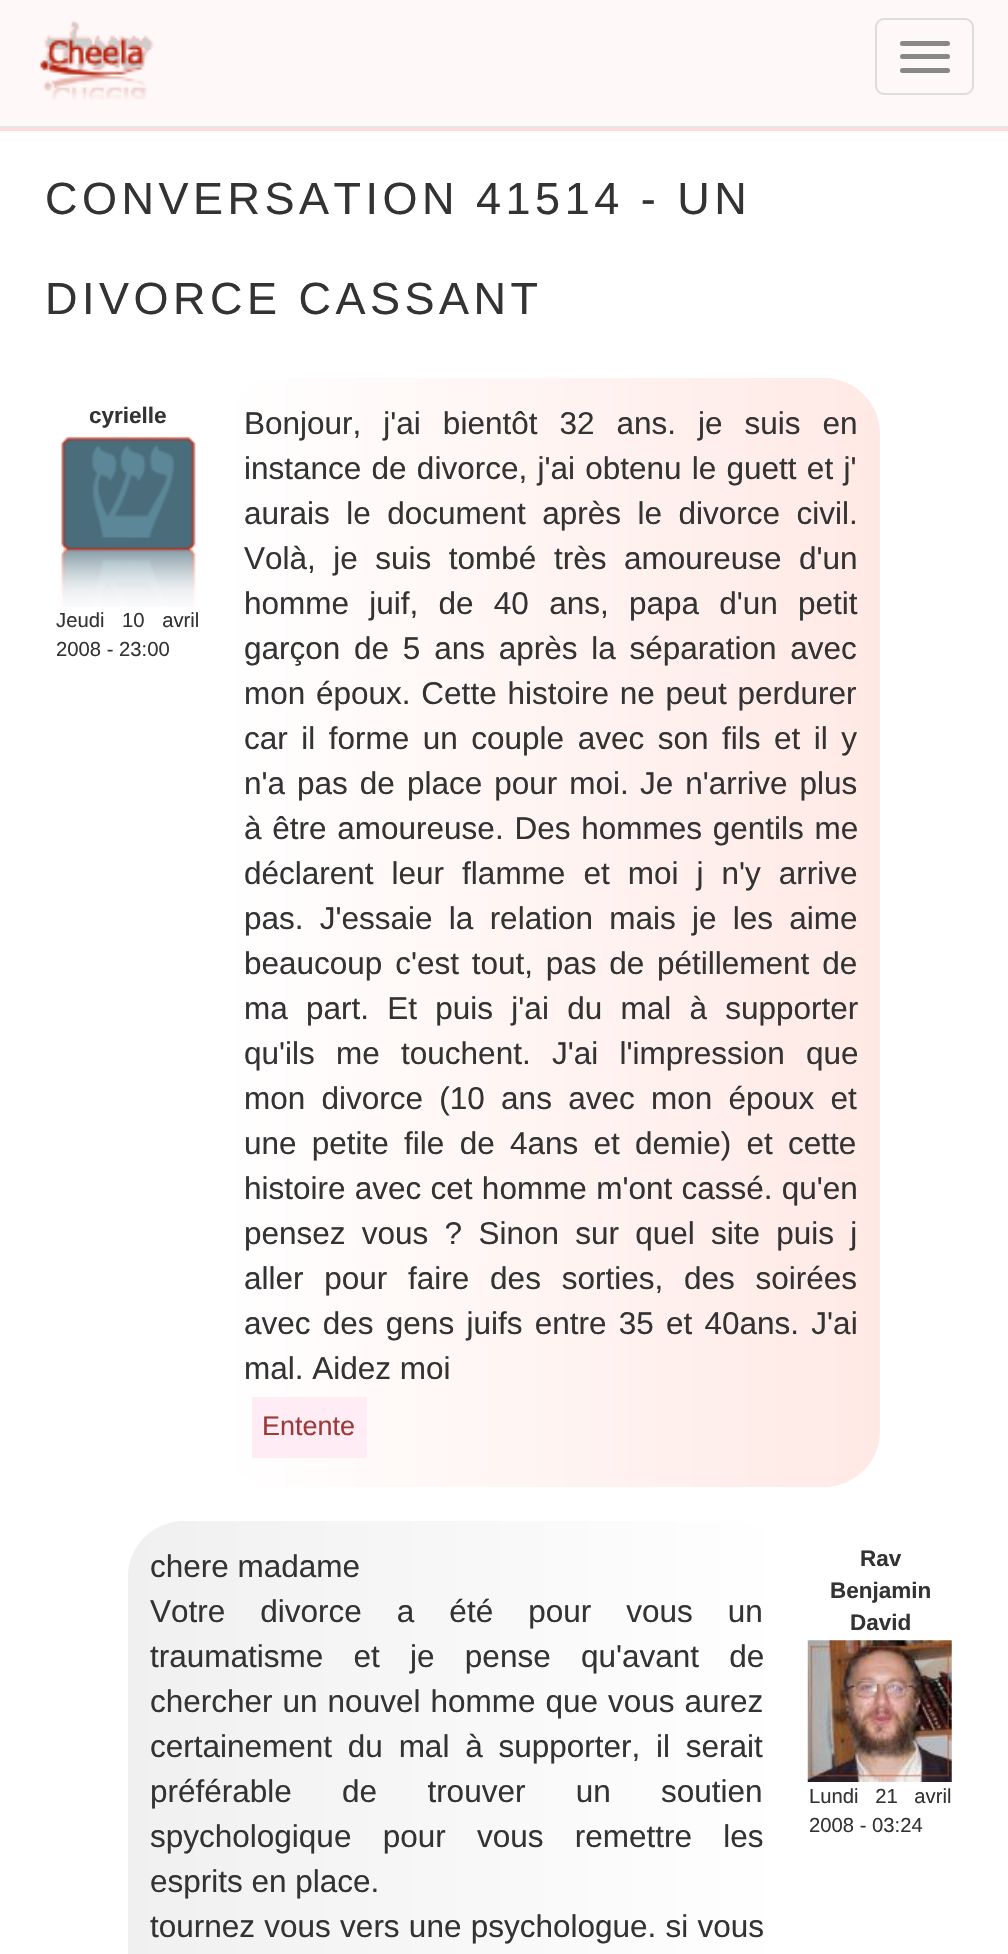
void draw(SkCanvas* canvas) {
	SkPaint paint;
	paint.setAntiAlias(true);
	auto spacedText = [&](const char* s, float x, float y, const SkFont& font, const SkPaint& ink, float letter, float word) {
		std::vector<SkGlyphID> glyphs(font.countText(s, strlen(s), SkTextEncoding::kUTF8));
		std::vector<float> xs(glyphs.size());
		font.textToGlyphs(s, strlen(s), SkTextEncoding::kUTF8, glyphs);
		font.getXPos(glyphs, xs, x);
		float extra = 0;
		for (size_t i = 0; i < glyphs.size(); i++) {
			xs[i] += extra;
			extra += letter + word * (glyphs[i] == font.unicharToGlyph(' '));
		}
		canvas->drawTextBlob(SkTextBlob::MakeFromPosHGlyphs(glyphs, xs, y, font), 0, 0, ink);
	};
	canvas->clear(0xffffffff);
	paint.setColor(0xffffdbdb);
	canvas->drawRect(SkRect::MakeXYWH(0, 128, 1008, 3), paint);
	paint.setColor(0xfffff8f8);
	canvas->drawRect(SkRect::MakeXYWH(0, 0, 1008, 126), paint);
	paint.setColor(0xffe7e7e7);
	canvas->drawRect(SkRect::MakeXYWH(0, 126, 1008, 2), paint);
	canvas->drawImageRect(SkImages::DeferredFromEncodedData(SkData::MakeFromFileName("img1.png")), SkRect::MakeXYWH(40, 20, 114, 80), SkSamplingOptions());
	paint.setStroke(true);
	paint.setStrokeWidth(2);
	paint.setColor(0xffdddddd);
	canvas->drawRoundRect(SkRect::MakeXYWH(876, 19, 97, 75), 8, 8, paint);
	paint.setStroke(false);
	paint.setColor(0xff888888);
	canvas->drawRoundRect(SkRect::MakeXYWH(900, 41, 50, 5), 2.5, 2.5, paint);
	canvas->drawRoundRect(SkRect::MakeXYWH(900, 54, 50, 5), 2.5, 2.5, paint);
	canvas->drawRoundRect(SkRect::MakeXYWH(900, 68, 50, 5), 2.5, 2.5, paint);
	SkFont f1(fontMgr->matchFamilyStyle("Liberation Sans", SkFontStyle::Normal()), 45);
	f1.setSubpixel(true);
	paint.setColor(0xff333333);
	spacedText("CONVERSATION 41514 - UN", 45, 214, f1, paint, 4.5, 0);
	spacedText("DIVORCE CASSANT", 45, 314, f1, paint, 4.5, 0);
	SkFont f2(fontMgr->matchFamilyStyle("Liberation Sans", SkFontStyle::Bold()), 22.5);
	f2.setSubpixel(true);
	canvas->drawString("cyrielle", 89, 423, f2, paint);
	canvas->drawImageRect(SkImages::DeferredFromEncodedData(SkData::MakeFromFileName("img2.png")), SkRect::MakeXYWH(61, 436, 135, 171), SkSamplingOptions());
	SkFont f3(fontMgr->matchFamilyStyle("Liberation Sans", SkFontStyle::Normal()), 20.25);
	f3.setSubpixel(true);
	spacedText("Jeudi 10 avril", 56, 627, f3, paint, 0, 12);
	canvas->drawString("2008 - 23:00", 56, 656, f3, paint);
	{
		const SkColor colors[] = {0xffffffff, 0xffffe9e5};
		const float stops[] = {0, 1};
		const SkPoint ends[] = {{223, 933}, {880, 933}};
		paint.setShader(SkGradientShader::MakeLinear(ends, colors, stops, 2, SkTileMode::kClamp));
		paint.setAlpha(255);
	}
	canvas->drawRoundRect(SkRect::MakeXYWH(223, 378, 657, 1109), 56, 56, paint);
	SkFont f4(fontMgr->matchFamilyStyle("Liberation Sans", SkFontStyle::Normal()), 31.5);
	f4.setSubpixel(true);
	paint.setShader(nullptr);
	paint.setColor(0xff333333);
	spacedText("Bonjour, j'ai bientôt 32 ans. je suis en", 244, 434, f4, paint, 0, 13.25);
	spacedText("instance de divorce, j'ai obtenu le guett et j'", 244, 479, f4, paint, 0, 1.5);
	spacedText("aurais le document après le divorce civil.", 244, 524, f4, paint, 0, 7.75);
	spacedText("Volà, je suis tombé très amoureuse d'un", 244, 569, f4, paint, 0, 8.75);
	spacedText("homme juif, de 40 ans, papa d'un petit", 244, 614, f4, paint, 0, 11.5);
	spacedText("garçon de 5 ans après la séparation avec", 244, 659, f4, paint, 0, 5);
	spacedText("mon époux. Cette histoire ne peut perdurer", 244, 704, f4, paint, 0, 2);
	spacedText("car il forme un couple avec son fils et il y", 244, 749, f4, paint, 0, 4.75);
	spacedText("n'a pas de place pour moi.", 244, 794, f4, paint, 0, 3.25);
	spacedText("Je n'arrive plus", 640, 794, f4, paint, 0, 3.25);
	spacedText("à être amoureuse. Des hommes gentils me", 244, 839, f4, paint, 0, 2);
	spacedText("déclarent leur flamme et moi j n'y arrive", 244, 884, f4, paint, 0, 9.25);
	spacedText("pas. J'essaie la relation mais je les aime", 244, 929, f4, paint, 0, 7.5);
	spacedText("beaucoup c'est tout, pas de pétillement de", 244, 974, f4, paint, 0, 4);
	spacedText("ma part. Et puis j'ai du mal à supporter", 244, 1019, f4, paint, 0, 9.5);
	spacedText("qu'ils me touchent. J'ai l'impression que", 244, 1064, f4, paint, 0, 12.5);
	spacedText("mon divorce (10 ans avec mon époux et", 244, 1109, f4, paint, 0, 7.5);
	spacedText("une petite file de 4ans et demie) et cette", 244, 1154, f4, paint, 0, 6.5);
	spacedText("histoire avec cet homme m'ont cassé. qu'en", 244, 1199, f4, paint, 0, 0.5);
	spacedText("pensez vous ? Sinon sur quel site puis j", 244, 1244, f4, paint, 0, 7.5);
	spacedText("aller pour faire des sorties, des soirées", 244, 1289, f4, paint, 0, 12);
	spacedText("avec des gens juifs entre 35 et 40ans. J'ai", 244, 1334, f4, paint, 0, 3.5);
	canvas->drawString("mal. Aidez moi", 244, 1379, f4, paint);
	paint.setColor(0xffffecf4);
	canvas->drawRect(SkRect::MakeXYWH(252, 1397, 115, 61), paint);
	SkFont f5(fontMgr->matchFamilyStyle("Liberation Sans", SkFontStyle::Normal()), 27);
	f5.setSubpixel(true);
	paint.setColor(0xff9d3939);
	canvas->drawString("Entente", 262, 1435, f5, paint);
	{
		const SkColor colors[] = {0xffffffff, 0xfff0f0f0};
		const float stops[] = {0, 1};
		const SkPoint ends[] = {{785, 1926}, {128, 1926}};
		paint.setShader(SkGradientShader::MakeLinear(ends, colors, stops, 2, SkTileMode::kClamp));
		paint.setAlpha(255);
	}
	canvas->drawRoundRect(SkRect::MakeXYWH(128, 1521, 657, 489), 56, 56, paint);
	paint.setShader(nullptr);
	paint.setColor(0xff333333);
	canvas->drawString("chere madame", 150, 1577, f4, paint);
	spacedText("Votre divorce a été pour vous un", 150, 1622, f4, paint, 0, 26.25);
	spacedText("traumatisme et je pense qu'avant de", 150, 1667, f4, paint, 0, 21.5);
	spacedText("chercher un nouvel homme que vous aurez", 150, 1712, f4, paint, 0, 1.25);
	spacedText("certainement du mal à supporter, il serait", 150, 1757, f4, paint, 0, 7);
	spacedText("préférable de trouver un soutien", 150, 1802, f4, paint, 0, 41.5);
	spacedText("spychologique pour vous remettre les", 150, 1847, f4, paint, 0, 22.5);
	canvas->drawString("esprits en place.", 150, 1892, f4, paint);
	spacedText("tournez vous vers une psychologue. si vous", 150, 1937, f4, paint, 0, 0.5);
	canvas->drawString("Rav", 860, 1566, f2, paint);
	canvas->drawString("Benjamin", 830, 1598, f2, paint);
	canvas->drawString("David", 850, 1630, f2, paint);
	canvas->drawImageRect(SkImages::DeferredFromEncodedData(SkData::MakeFromFileName("img3.png")), SkRect::MakeXYWH(807, 1640, 145, 142), SkSamplingOptions());
	spacedText("Lundi 21 avril", 809, 1803, f3, paint, 0, 11);
	canvas->drawString("2008 - 03:24", 809, 1832, f3, paint);
}
